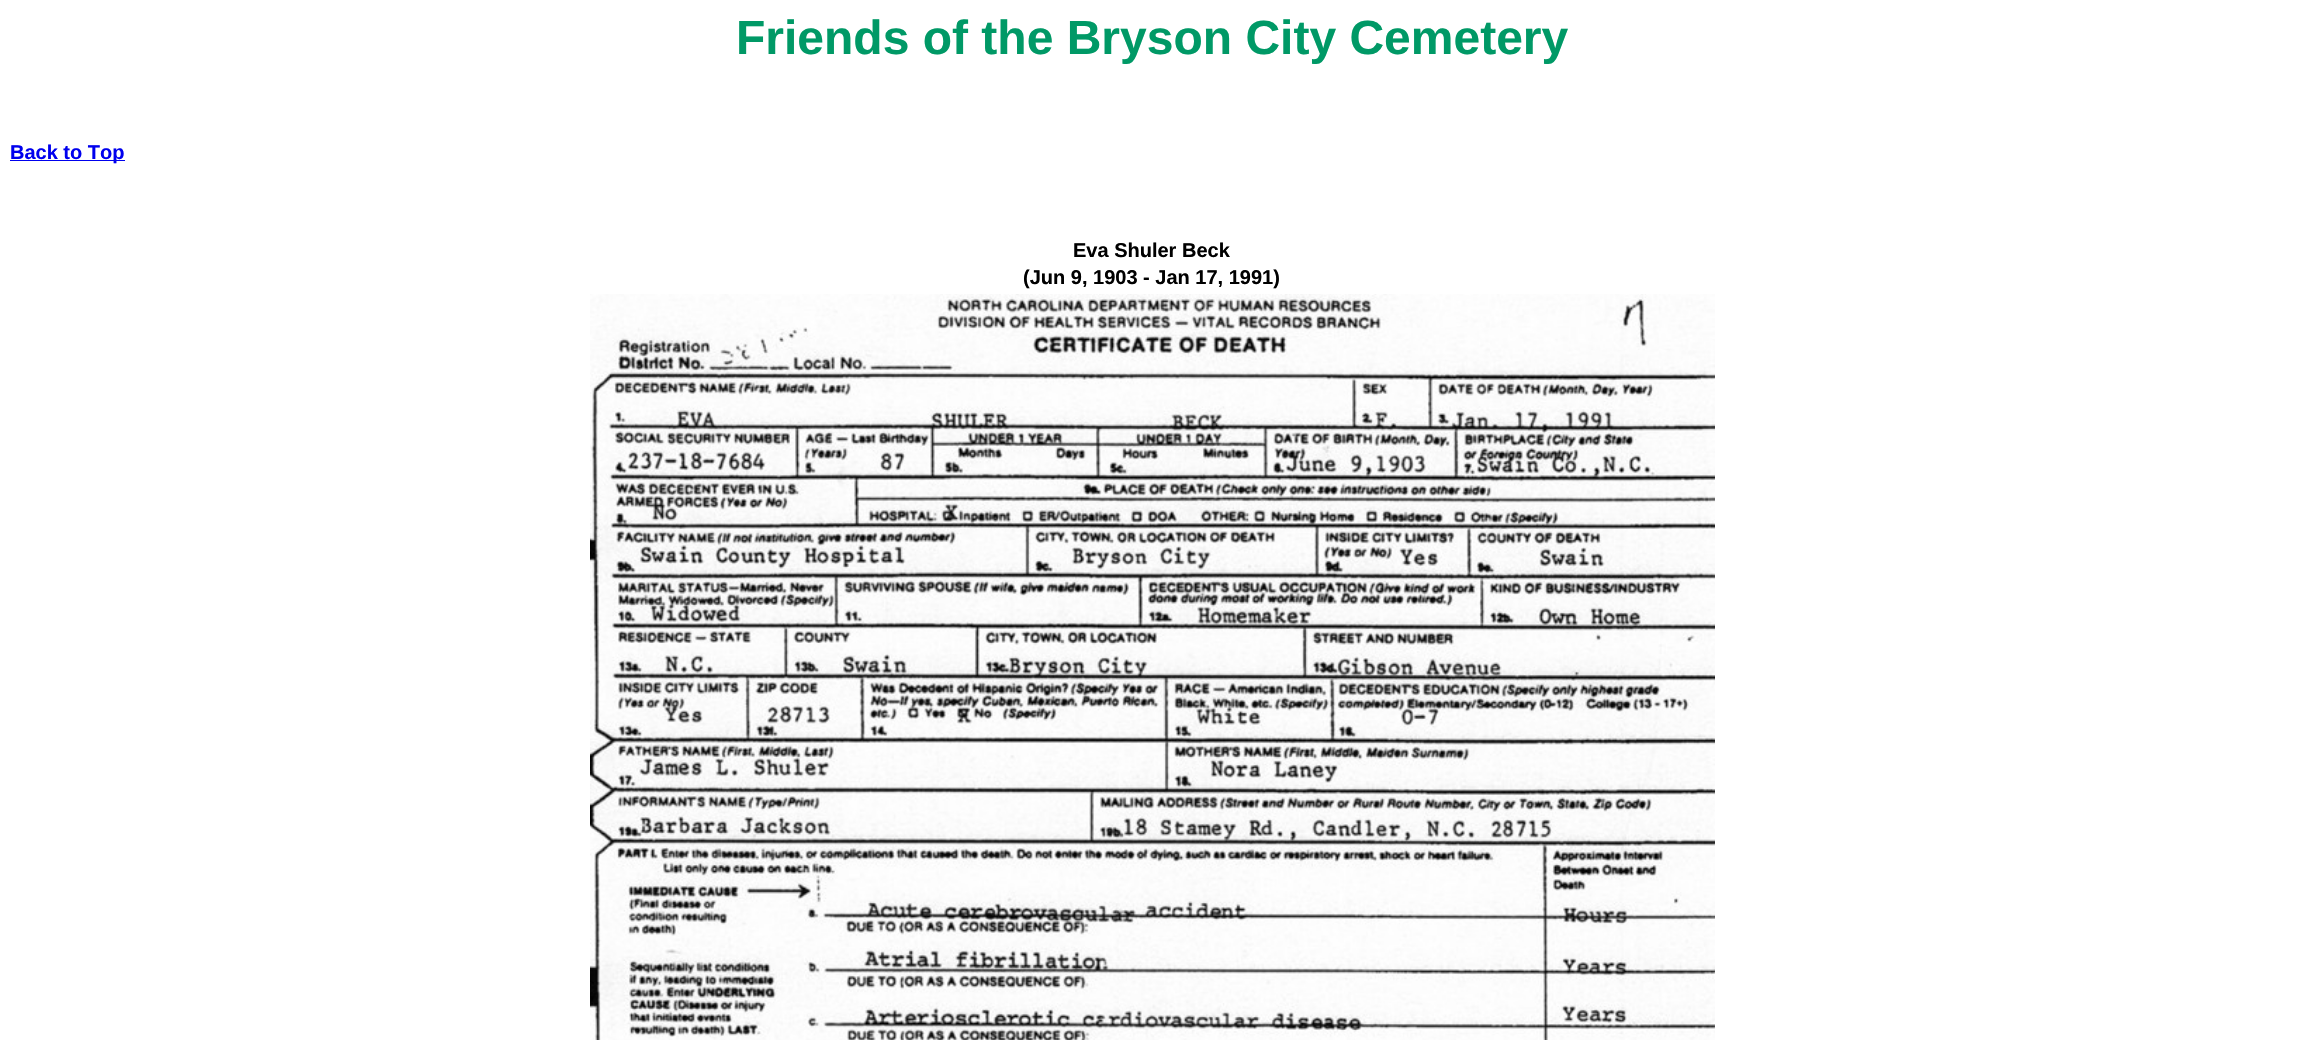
void draw(SkCanvas* canvas) {
	SkPaint paint;
	paint.setAntiAlias(true);
	canvas->clear(0xffffffff);
	SkFont f1(fontMgr->matchFamilyStyle("Liberation Sans", SkFontStyle::Bold()), 48);
	f1.setSubpixel(true);
	paint.setColor(0xff009966);
	canvas->drawString("Friends of the Bryson City Cemetery", 736, 54, f1, paint);
	paint.setColor(0xff0000ee);
	canvas->drawRect(SkRect::MakeXYWH(10, 160, 115, 1), paint);
	SkFont f2(fontMgr->matchFamilyStyle("Liberation Sans", SkFontStyle::Bold()), 20);
	f2.setSubpixel(true);
	canvas->drawString("Back to Top", 10, 159, f2, paint);
	paint.setColor(0xff000000);
	canvas->drawString("Eva Shuler Beck", 1073, 257, f2, paint);
	canvas->drawString("(Jun 9, 1903 - Jan 17, 1991)", 1023, 284, f2, paint);
	canvas->drawImageRect(SkImages::DeferredFromEncodedData(SkData::MakeFromFileName("img1.png")), SkRect::MakeXYWH(590, 294, 1125, 746), SkSamplingOptions());
}
